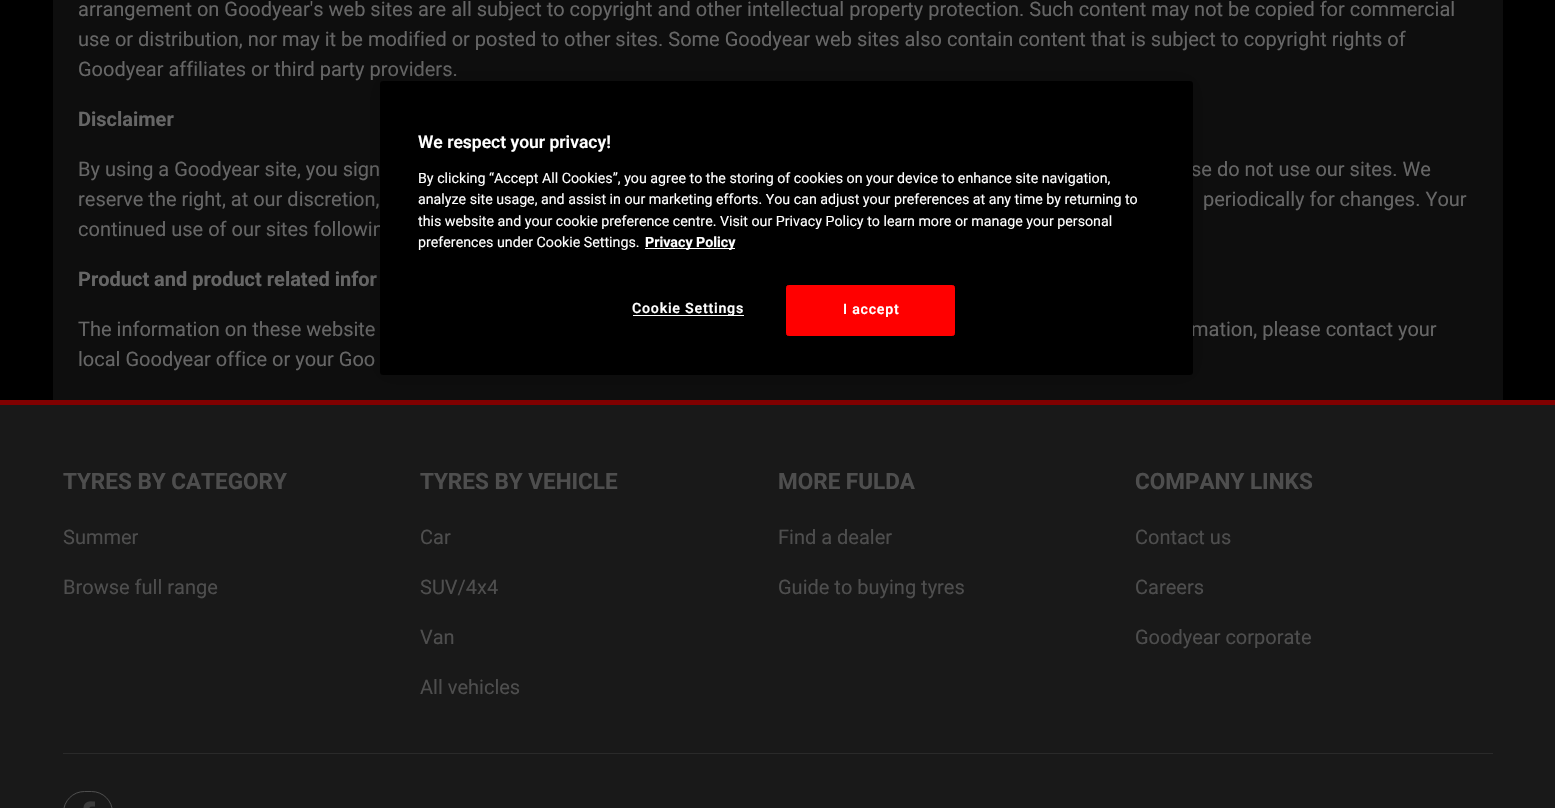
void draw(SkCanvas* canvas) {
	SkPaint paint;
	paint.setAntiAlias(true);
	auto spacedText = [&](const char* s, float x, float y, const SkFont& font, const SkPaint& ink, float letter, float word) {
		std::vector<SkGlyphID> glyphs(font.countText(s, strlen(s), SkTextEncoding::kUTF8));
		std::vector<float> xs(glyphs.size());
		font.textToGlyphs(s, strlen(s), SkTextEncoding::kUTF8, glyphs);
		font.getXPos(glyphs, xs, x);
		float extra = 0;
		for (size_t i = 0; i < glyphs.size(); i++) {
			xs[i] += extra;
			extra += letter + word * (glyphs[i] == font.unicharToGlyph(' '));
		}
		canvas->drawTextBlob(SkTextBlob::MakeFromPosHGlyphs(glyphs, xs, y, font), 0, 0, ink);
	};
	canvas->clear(0xff000000);
	paint.setColor(0xff0e0e0e);
	canvas->drawRect(SkRect::MakeXYWH(53, 0, 1450, 400), paint);
	SkFont f1(fontMgr->matchFamilyStyle("Roboto", SkFontStyle::Normal()), 20);
	f1.setSubpixel(true);
	paint.setColor(0xff666666);
	canvas->drawString("arrangement on Goodyear's web sites are all subject to copyright and other intellectual property protection. Such content may not be copied for commercial", 78, 16, f1, paint);
	canvas->drawString("use or distribution, nor may it be modified or posted to other sites. Some Goodyear web sites also contain content that is subject to copyright rights of", 78, 46, f1, paint);
	canvas->drawString("Goodyear affiliates or third party providers.", 78, 76, f1, paint);
	SkFont f2(fontMgr->matchFamilyStyle("Roboto", SkFontStyle::Bold()), 20);
	f2.setSubpixel(true);
	canvas->drawString("Disclaimer", 78, 126, f2, paint);
	canvas->drawString("By using a Goodyear site, you sign", 78, 176, f1, paint);
	canvas->drawString("se do not use our sites. We", 1191, 176, f1, paint);
	canvas->drawString("reserve the right, at our discretion,", 78, 206, f1, paint);
	canvas->drawString("periodically for changes. Your", 1203, 206, f1, paint);
	canvas->drawString("continued use of our sites followin", 78, 236, f1, paint);
	canvas->drawString("Product and product related infor", 78, 286, f2, paint);
	canvas->drawString("The information on these website", 78, 336, f1, paint);
	canvas->drawString("mation, please contact your", 1191, 336, f1, paint);
	canvas->drawString("local Goodyear office or your Goo", 78, 366, f1, paint);
	paint.setColor(0xff191919);
	canvas->drawRect(SkRect::MakeXYWH(0, 405, 1555, 403), paint);
	paint.setColor(0xff800000);
	canvas->drawRect(SkRect::MakeXYWH(0, 400, 1555, 5), paint);
	paint.setColor(0x33000000);
	paint.setMaskFilter(SkMaskFilter::MakeBlur(kNormal_SkBlurStyle, 11));
	canvas->drawRoundRect(SkRect::MakeXYWH(380, 81, 813, 294), 3, 3, paint);
	paint.setMaskFilter(nullptr);
	paint.setColor(0xff000000);
	canvas->drawRoundRect(SkRect::MakeXYWH(380, 81, 813, 294), 3, 3, paint);
	SkFont f3(fontMgr->matchFamilyStyle("Roboto", SkFontStyle(600, SkFontStyle::kNormal_Width, SkFontStyle::kUpright_Slant)), 17.5);
	f3.setSubpixel(true);
	paint.setColor(0xffffffff);
	canvas->drawString("We respect your privacy!", 418, 148, f3, paint);
	SkFont f4(fontMgr->matchFamilyStyle("Roboto", SkFontStyle::Normal()), 14.23);
	f4.setSubpixel(true);
	canvas->drawString("By clicking “Accept All Cookies”, you agree to the storing of cookies on your device to enhance site navigation,", 418, 183, f4, paint);
	canvas->drawString("analyze site usage, and assist in our marketing efforts. You can adjust your preferences at any time by returning to", 418, 204, f4, paint);
	canvas->drawString("this website and your cookie preference centre. Visit our Privacy Policy to learn more or manage your personal", 418, 226, f4, paint);
	canvas->drawString("preferences under Cookie Settings.", 418, 247, f4, paint);
	canvas->drawRect(SkRect::MakeXYWH(645, 248, 90, 1), paint);
	SkFont f5(fontMgr->matchFamilyStyle("Roboto", SkFontStyle::Bold()), 14.23);
	f5.setSubpixel(true);
	canvas->drawString("Privacy Policy", 645, 247, f5, paint);
	canvas->drawRect(SkRect::MakeXYWH(633, 315, 111, 1), paint);
	SkFont f6(fontMgr->matchFamilyStyle("Roboto", SkFontStyle(600, SkFontStyle::kNormal_Width, SkFontStyle::kUpright_Slant)), 14.23);
	f6.setSubpixel(true);
	spacedText("Cookie Settings", 632, 313, f6, paint, 0.75, 0);
	paint.setColor(0xffff0000);
	canvas->drawRoundRect(SkRect::MakeXYWH(786.5, 285.5, 168, 50), 2, 2, paint);
	paint.setStroke(true);
	paint.setStrokeWidth(1);
	canvas->drawRoundRect(SkRect::MakeXYWH(786.5, 285.5, 168, 50), 2, 2, paint);
	paint.setStroke(false);
	paint.setColor(0xffffffff);
	spacedText("I accept", 843, 314, f6, paint, 0.75, 0);
	SkFont f7(fontMgr->matchFamilyStyle("Roboto", SkFontStyle::Bold()), 22.5);
	f7.setSubpixel(true);
	paint.setColor(0xff4e4e4e);
	canvas->drawString("TYRES BY CATEGORY", 63, 489, f7, paint);
	canvas->drawString("Summer", 63, 544, f1, paint);
	canvas->drawString("Browse full range", 63, 594, f1, paint);
	canvas->drawString("TYRES BY VEHICLE", 420, 489, f7, paint);
	canvas->drawString("Car", 420, 544, f1, paint);
	canvas->drawString("SUV/4x4", 420, 594, f1, paint);
	canvas->drawString("Van", 420, 644, f1, paint);
	canvas->drawString("All vehicles", 420, 694, f1, paint);
	canvas->drawString("MORE FULDA", 778, 489, f7, paint);
	canvas->drawString("Find a dealer", 778, 544, f1, paint);
	canvas->drawString("Guide to buying tyres", 778, 594, f1, paint);
	canvas->drawString("COMPANY LINKS", 1135, 489, f7, paint);
	canvas->drawString("Contact us", 1135, 544, f1, paint);
	canvas->drawString("Careers", 1135, 594, f1, paint);
	canvas->drawString("Goodyear corporate", 1135, 644, f1, paint);
	paint.setColor(0xff2a2a2a);
	canvas->drawRect(SkRect::MakeXYWH(63, 753, 1430, 1), paint);
	paint.setStroke(true);
	paint.setColor(0xff4e4e4e);
	canvas->drawRoundRect(SkRect::MakeXYWH(63.5, 791.5, 49, 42), 24.5, 24.5, paint);
	canvas->drawImageRect(SkImages::DeferredFromEncodedData(SkData::MakeFromFileName("img1.png")), SkRect::MakeXYWH(83, 801, 12, 7), SkSamplingOptions());
}
